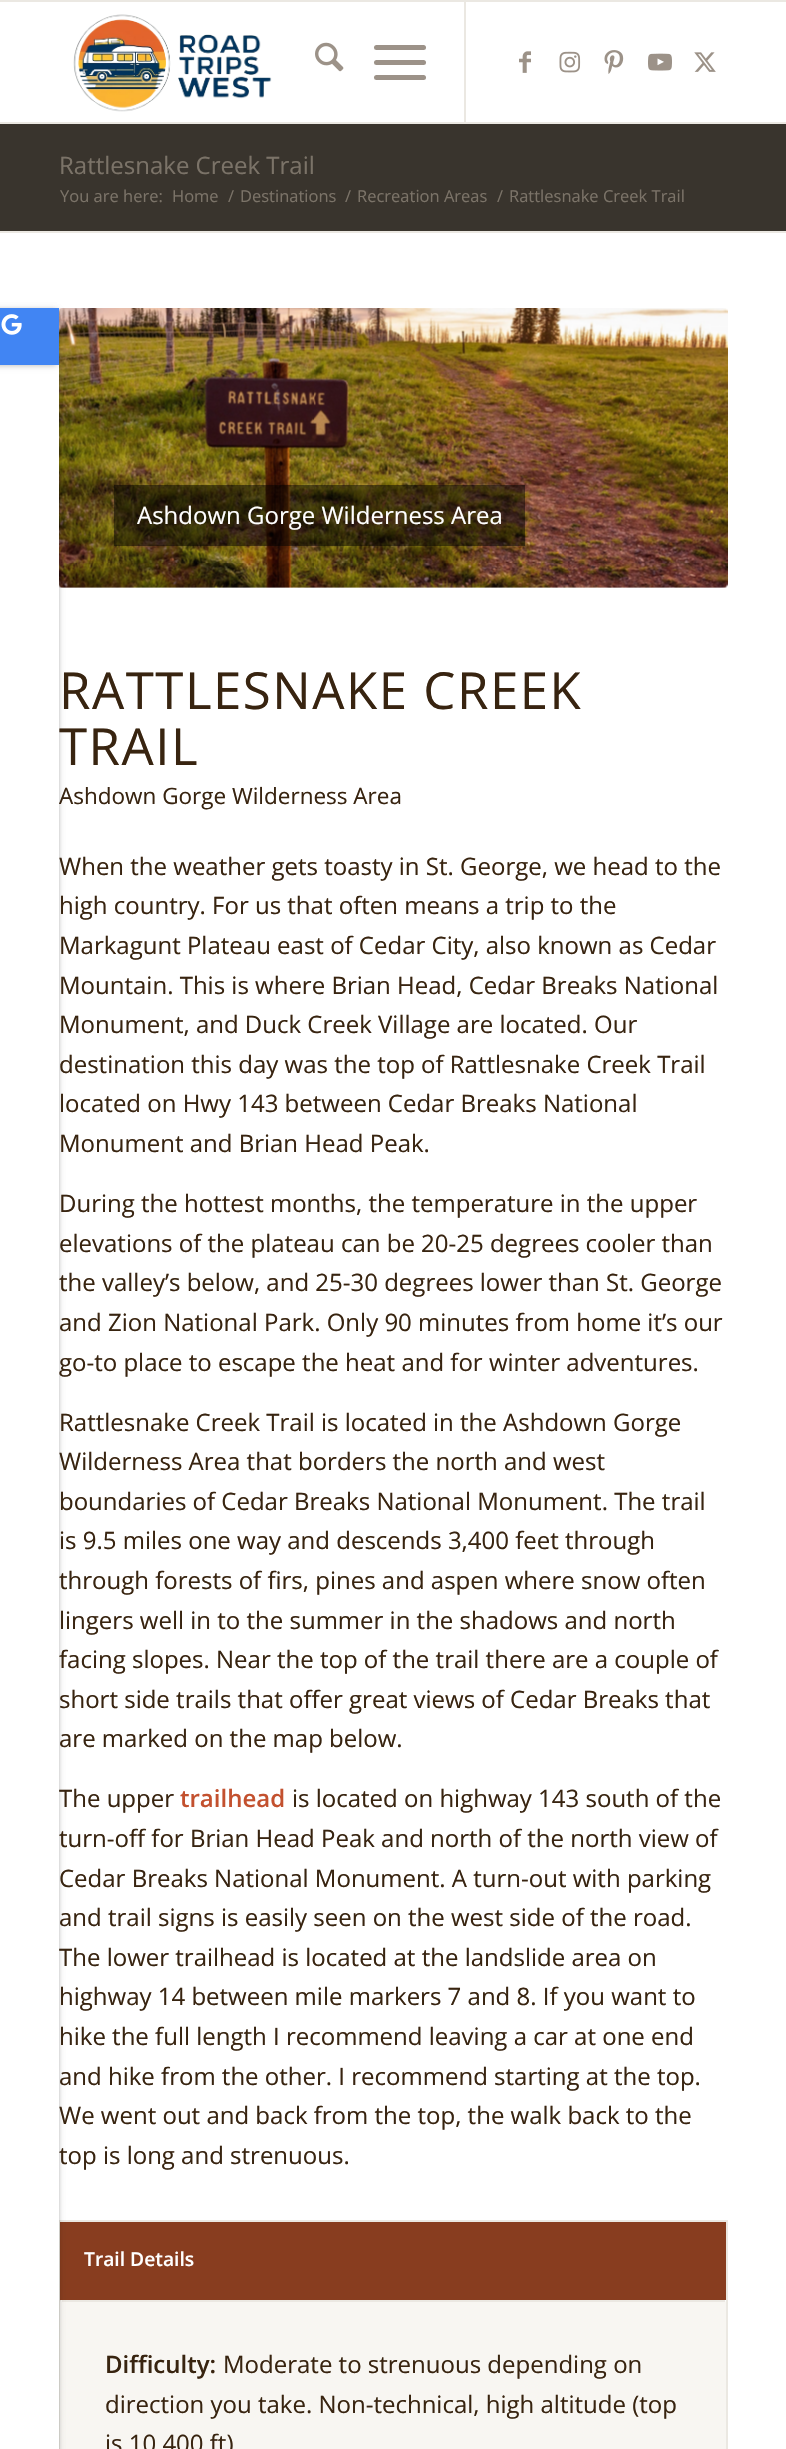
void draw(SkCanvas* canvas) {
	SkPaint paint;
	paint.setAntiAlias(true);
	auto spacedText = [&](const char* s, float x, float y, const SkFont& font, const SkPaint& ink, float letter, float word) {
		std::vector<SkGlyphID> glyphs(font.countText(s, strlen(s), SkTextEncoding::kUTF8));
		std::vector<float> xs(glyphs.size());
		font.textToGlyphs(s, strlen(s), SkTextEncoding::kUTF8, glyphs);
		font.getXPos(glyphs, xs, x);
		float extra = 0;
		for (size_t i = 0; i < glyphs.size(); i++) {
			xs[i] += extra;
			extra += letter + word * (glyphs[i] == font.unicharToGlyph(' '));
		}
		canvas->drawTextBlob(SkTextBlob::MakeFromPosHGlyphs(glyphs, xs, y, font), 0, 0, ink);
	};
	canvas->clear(0xffffffff);
	paint.setColor(0xffebe8e2);
	canvas->drawRect(SkRect::MakeXYWH(0, 0, 786, 2), paint);
	canvas->drawRect(SkRect::MakeXYWH(0, 122, 786, 2), paint);
	canvas->drawImageRect(SkImages::DeferredFromEncodedData(SkData::MakeFromFileName("img1.png")), SkRect::MakeXYWH(73, 14, 199, 98), SkSamplingOptions());
	canvas->drawRect(SkRect::MakeXYWH(464, 2, 2, 120), paint);
	canvas->drawImageRect(SkImages::DeferredFromEncodedData(SkData::MakeFromFileName("img2.png")), SkRect::MakeXYWH(315, 42, 29, 30), SkSamplingOptions());
	paint.setColor(0xff9c9288);
	canvas->drawRoundRect(SkRect::MakeXYWH(374, 60, 52, 5), 2.5, 2.5, paint);
	canvas->drawRoundRect(SkRect::MakeXYWH(374, 45, 52, 5), 2.5, 2.5, paint);
	canvas->drawRoundRect(SkRect::MakeXYWH(374, 75, 52, 5), 2.5, 2.5, paint);
	canvas->drawImageRect(SkImages::DeferredFromEncodedData(SkData::MakeFromFileName("img3.png")), SkRect::MakeXYWH(519, 51, 12, 22), SkSamplingOptions());
	canvas->drawImageRect(SkImages::DeferredFromEncodedData(SkData::MakeFromFileName("img4.png")), SkRect::MakeXYWH(559, 51, 22, 22), SkSamplingOptions());
	canvas->drawImageRect(SkImages::DeferredFromEncodedData(SkData::MakeFromFileName("img5.png")), SkRect::MakeXYWH(604, 50, 20, 24), SkSamplingOptions());
	canvas->drawImageRect(SkImages::DeferredFromEncodedData(SkData::MakeFromFileName("img6.png")), SkRect::MakeXYWH(648, 53, 24, 18), SkSamplingOptions());
	canvas->drawImageRect(SkImages::DeferredFromEncodedData(SkData::MakeFromFileName("img7.png")), SkRect::MakeXYWH(694, 52, 22, 20), SkSamplingOptions());
	paint.setColor(0xff39342d);
	canvas->drawRect(SkRect::MakeXYWH(0, 124, 786, 107), paint);
	SkFont f1(fontMgr->matchFamilyStyle("Open Sans", SkFontStyle::Normal()), 24);
	f1.setSubpixel(true);
	paint.setColor(0xff7b7368);
	canvas->drawString("Rattlesnake Creek Trail", 59, 174, f1, paint);
	SkFont f2(fontMgr->matchFamilyStyle("Open Sans", SkFontStyle::Normal()), 16.5);
	f2.setSubpixel(true);
	canvas->drawString("You are here:", 60, 202, f2, paint);
	canvas->drawString("Home", 172, 202, f2, paint);
	canvas->drawString("/", 228, 202, f2, paint);
	canvas->drawString("Destinations", 240, 202, f2, paint);
	canvas->drawString("/", 345, 202, f2, paint);
	canvas->drawString("Recreation Areas", 357, 202, f2, paint);
	canvas->drawString("/", 497, 202, f2, paint);
	canvas->drawString("Rattlesnake Creek Trail", 509, 202, f2, paint);
	paint.setColor(0xffebe8e2);
	canvas->drawRect(SkRect::MakeXYWH(0, 231, 786, 2), paint);
	canvas->drawImageRect(SkImages::DeferredFromEncodedData(SkData::MakeFromFileName("img9.png")), SkRect::MakeXYWH(59, 308, 669, 280), SkSamplingOptions());
	canvas->drawRect(SkRect::MakeXYWH(59, 2220, 2, 229), paint);
	paint.setColor(0xff883d1f);
	canvas->drawRect(SkRect::MakeXYWH(60, 2222, 666, 78), paint);
	paint.setColor(0xffebe8e2);
	canvas->drawRect(SkRect::MakeXYWH(60, 2220, 666, 2), paint);
	paint.setColor(0xfff8f6f2);
	canvas->drawRoundRect(SkRect::MakeXYWH(60, 2300, 666, 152), 3, 3, paint);
	paint.setColor(0xffebe8e2);
	canvas->drawRect(SkRect::MakeXYWH(62, 2300, 663, 2), paint);
	paint.setColor(0x4d000000);
	paint.setMaskFilter(SkMaskFilter::MakeBlur(kNormal_SkBlurStyle, 3));
	canvas->drawRect(SkRect::MakeXYWH(-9, 311, 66, 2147), paint);
	paint.setMaskFilter(nullptr);
	paint.setMaskFilter(SkMaskFilter::MakeBlur(kNormal_SkBlurStyle, 3));
	canvas->drawRect(SkRect::MakeXYWH(-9, 311, 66, 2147), paint);
	paint.setMaskFilter(nullptr);
	SkFont f3(fontMgr->matchFamilyStyle("Open Sans", SkFontStyle::Normal()), 22.5);
	f3.setSubpixel(true);
	paint.setColor(0xff382410);
	canvas->drawString("Ashdown Gorge Wilderness Area", 59, 804, f3, paint);
	paint.setColor(0xffffffff);
	canvas->drawRect(SkRect::MakeXYWH(0, 365, 59, 2084), paint);
	canvas->save();
	canvas->clipRect(SkRect::MakeXYWH(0, 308, 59, 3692));
	paint.setColor(0x4d000000);
	paint.setMaskFilter(SkMaskFilter::MakeBlur(kNormal_SkBlurStyle, 3));
	canvas->drawRect(SkRect::MakeXYWH(-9, 311, 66, 54), paint);
	paint.setMaskFilter(nullptr);
	canvas->restore();
	paint.setColor(0xff4185f3);
	canvas->drawRect(SkRect::MakeXYWH(0, 308, 59, 57), paint);
	canvas->drawImageRect(SkImages::DeferredFromEncodedData(SkData::MakeFromFileName("img8.png")), SkRect::MakeXYWH(1, 314, 21, 21), SkSamplingOptions());
	paint.setColor(0x80000000);
	canvas->drawRect(SkRect::MakeXYWH(114, 485, 411, 61), paint);
	paint.setColor(0xffffffff);
	canvas->drawString("Ashdown Gorge Wilderness Area", 137, 524, f1, paint);
	SkFont f4(fontMgr->matchFamilyStyle("Open Sans", SkFontStyle::Normal()), 51);
	f4.setSubpixel(true);
	paint.setColor(0xff382410);
	spacedText("RATTLESNAKE CREEK", 59, 709, f4, paint, 1.5, 0);
	spacedText("TRAIL", 59, 765, f4, paint, 1.5, 0);
	canvas->drawString("When the weather gets toasty in St. George, we head to the", 59, 875, f1, paint);
	canvas->drawString("high country. For us that often means a trip to the", 59, 914, f1, paint);
	canvas->drawString("Markagunt Plateau east of Cedar City, also known as Cedar", 59, 954, f1, paint);
	canvas->drawString("Mountain. This is where Brian Head, Cedar Breaks National", 59, 994, f1, paint);
	canvas->drawString("Monument, and Duck Creek Village are located. Our", 59, 1033, f1, paint);
	canvas->drawString("destination this day was the top of Rattlesnake Creek Trail", 59, 1073, f1, paint);
	canvas->drawString("located on Hwy 143 between Cedar Breaks National", 59, 1112, f1, paint);
	canvas->drawString("Monument and Brian Head Peak.", 59, 1152, f1, paint);
	canvas->drawString("During the hottest months, the temperature in the upper", 59, 1212, f1, paint);
	canvas->drawString("elevations of the plateau can be 20-25 degrees cooler than", 59, 1252, f1, paint);
	canvas->drawString("the valley’s below, and 25-30 degrees lower than St. George", 59, 1291, f1, paint);
	canvas->drawString("and Zion National Park. Only 90 minutes from home it’s our", 59, 1331, f1, paint);
	canvas->drawString("go-to place to escape the heat and for winter adventures.", 59, 1371, f1, paint);
	canvas->drawString("Rattlesnake Creek Trail is located in the Ashdown Gorge", 59, 1431, f1, paint);
	canvas->drawString("Wilderness Area that borders the north and west", 59, 1470, f1, paint);
	canvas->drawString("boundaries of Cedar Breaks National Monument. The trail", 59, 1510, f1, paint);
	canvas->drawString("is 9.5 miles one way and descends 3,400 feet through", 59, 1549, f1, paint);
	canvas->drawString("through forests of firs, pines and aspen where snow often", 59, 1589, f1, paint);
	canvas->drawString("lingers well in to the summer in the shadows and north", 59, 1629, f1, paint);
	canvas->drawString("facing slopes. Near the top of the trail there are a couple of", 59, 1668, f1, paint);
	canvas->drawString("short side trails that offer great views of Cedar Breaks that", 59, 1708, f1, paint);
	canvas->drawString("are marked on the map below.", 59, 1747, f1, paint);
	canvas->drawString("The upper", 59, 1807, f1, paint);
	SkFont f5(fontMgr->matchFamilyStyle("Open Sans", SkFontStyle(600, SkFontStyle::kNormal_Width, SkFontStyle::kUpright_Slant)), 24);
	f5.setSubpixel(true);
	paint.setColor(0xffc3512f);
	canvas->drawString("trailhead", 180, 1807, f5, paint);
	paint.setColor(0xff382410);
	canvas->drawString("is located on highway 143 south of the", 292, 1807, f1, paint);
	canvas->drawString("turn-off for Brian Head Peak and north of the north view of", 59, 1847, f1, paint);
	canvas->drawString("Cedar Breaks National Monument. A turn-out with parking", 59, 1887, f1, paint);
	canvas->drawString("and trail signs is easily seen on the west side of the road.", 59, 1926, f1, paint);
	canvas->drawString("The lower trailhead is located at the landslide area on", 59, 1966, f1, paint);
	canvas->drawString("highway 14 between mile markers 7 and 8. If you want to", 59, 2005, f1, paint);
	canvas->drawString("hike the full length I recommend leaving a car at one end", 59, 2045, f1, paint);
	canvas->drawString("and hike from the other. I recommend starting at the top.", 59, 2085, f1, paint);
	canvas->drawString("We went out and back from the top, the walk back to the", 59, 2124, f1, paint);
	canvas->drawString("top is long and strenuous.", 59, 2164, f1, paint);
	paint.setColor(0xffebe8e2);
	canvas->drawRect(SkRect::MakeXYWH(726, 2220, 2, 229), paint);
	SkFont f6(fontMgr->matchFamilyStyle("Open Sans", SkFontStyle(600, SkFontStyle::kNormal_Width, SkFontStyle::kUpright_Slant)), 19.25);
	f6.setSubpixel(true);
	paint.setColor(0xffffffff);
	canvas->drawString("Trail Details", 84, 2266, f6, paint);
	paint.setColor(0xff382410);
	canvas->drawString("Difficulty:", 105, 2373, f5, paint);
	canvas->drawString("Moderate to strenuous depending on", 223, 2373, f1, paint);
	canvas->drawString("direction you take. Non-technical, high altitude (top", 105, 2413, f1, paint);
	canvas->drawString("is 10,400 ft)", 105, 2452, f1, paint);
}
